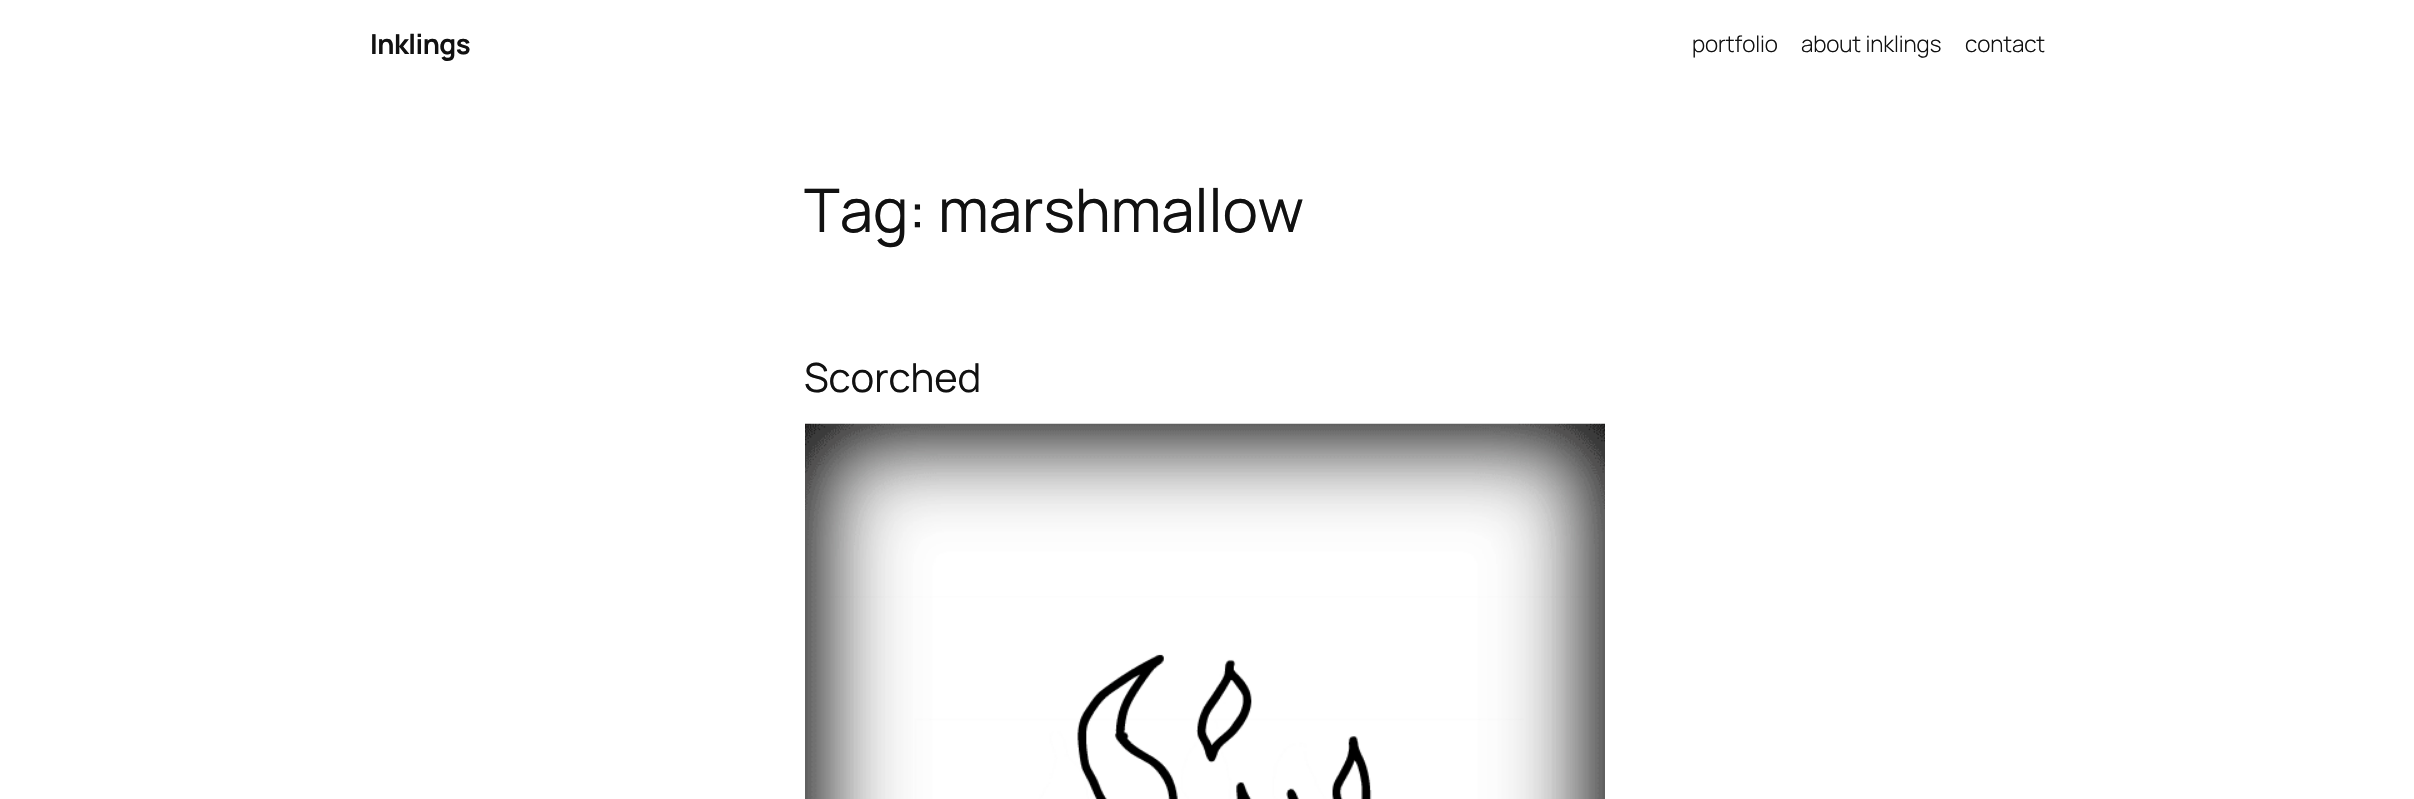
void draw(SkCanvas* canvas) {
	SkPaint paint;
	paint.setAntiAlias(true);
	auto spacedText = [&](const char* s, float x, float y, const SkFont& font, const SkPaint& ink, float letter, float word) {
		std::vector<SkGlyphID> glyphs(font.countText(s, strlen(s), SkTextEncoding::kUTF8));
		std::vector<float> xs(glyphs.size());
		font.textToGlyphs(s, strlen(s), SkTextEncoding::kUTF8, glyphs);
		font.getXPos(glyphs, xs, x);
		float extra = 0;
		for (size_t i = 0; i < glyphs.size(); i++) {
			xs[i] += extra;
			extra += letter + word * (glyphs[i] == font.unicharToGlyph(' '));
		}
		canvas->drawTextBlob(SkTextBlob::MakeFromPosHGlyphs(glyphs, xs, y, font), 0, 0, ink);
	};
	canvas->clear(0xffffffff);
	SkFont f1(fontMgr->matchFamilyStyle("Manrope", SkFontStyle::Bold()), 27.5);
	f1.setSubpixel(true);
	paint.setColor(0xff111111);
	spacedText("Inklings", 370, 54, f1, paint, -0.5, 0);
	SkFont f2(fontMgr->matchFamilyStyle("Manrope", SkFontStyle(300, SkFontStyle::kNormal_Width, SkFontStyle::kUpright_Slant)), 22.5);
	f2.setSubpixel(true);
	spacedText("portfolio", 1692, 52, f2, paint, -0.1, 0);
	spacedText("about inklings", 1801, 52, f2, paint, -0.1, 0);
	spacedText("contact", 1965, 52, f2, paint, -0.1, 0);
	SkFont f3(fontMgr->matchFamilyStyle("Manrope", SkFontStyle::Normal()), 60);
	f3.setSubpixel(true);
	spacedText("Tag: marshmallow", 804, 232, f3, paint, -0.1, 0);
	SkFont f4(fontMgr->matchFamilyStyle("Manrope", SkFontStyle::Normal()), 40);
	f4.setSubpixel(true);
	spacedText("Scorched", 804, 392, f4, paint, -0.1, 0);
	canvas->drawImageRect(SkImages::DeferredFromEncodedData(SkData::MakeFromFileName("img1.png")), SkRect::MakeXYWH(805, 423, 800, 376), SkSamplingOptions());
}
